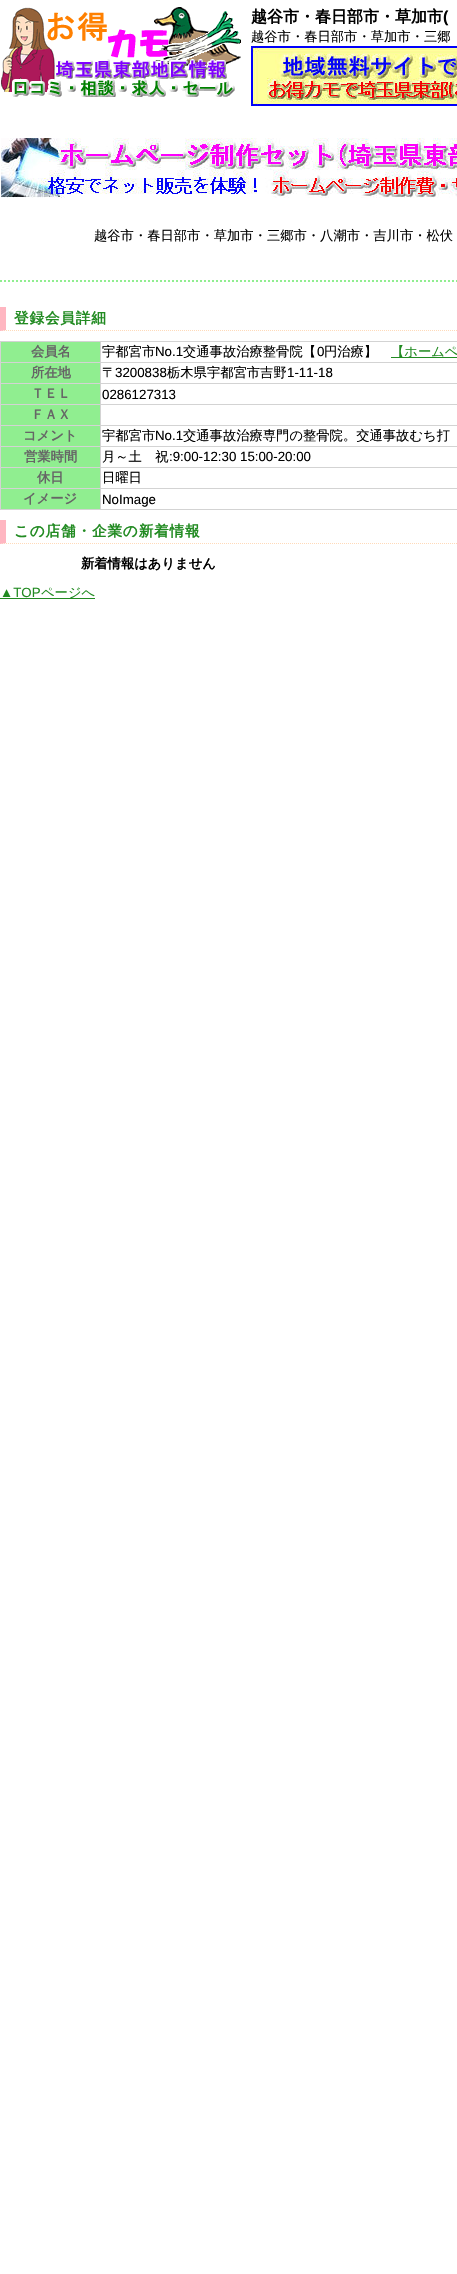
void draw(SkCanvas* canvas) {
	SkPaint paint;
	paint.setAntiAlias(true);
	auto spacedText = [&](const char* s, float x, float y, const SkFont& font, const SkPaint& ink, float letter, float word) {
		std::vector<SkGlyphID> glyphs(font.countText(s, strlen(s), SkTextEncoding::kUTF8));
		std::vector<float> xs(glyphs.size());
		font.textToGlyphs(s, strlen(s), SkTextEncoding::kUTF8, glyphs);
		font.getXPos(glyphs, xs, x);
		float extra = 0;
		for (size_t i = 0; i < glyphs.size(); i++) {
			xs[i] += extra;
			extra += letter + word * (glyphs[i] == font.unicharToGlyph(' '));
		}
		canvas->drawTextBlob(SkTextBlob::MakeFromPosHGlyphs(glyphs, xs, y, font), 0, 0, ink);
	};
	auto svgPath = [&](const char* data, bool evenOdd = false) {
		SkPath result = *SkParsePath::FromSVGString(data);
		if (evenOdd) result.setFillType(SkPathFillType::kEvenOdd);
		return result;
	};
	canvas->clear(0xffffffff);
	paint.setStroke(true);
	paint.setStrokeWidth(2);
	paint.setColor(0xff90ee90);
	paint.setPathEffect(SkDashPathEffect::Make({{2, 2}}, 0));
	canvas->drawPath(svgPath("M0 281H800"), paint);
	paint.setPathEffect(nullptr);
	canvas->drawImageRect(SkImages::DeferredFromEncodedData(SkData::MakeFromFileName("img1.png")), SkRect::MakeXYWH(1, 7, 240, 90), SkSamplingOptions());
	SkFont f1(fontMgr->matchFamilyStyle("WenQuanYi Zen Hei", SkFontStyle::Bold()), 16);
	f1.setSubpixel(true);
	paint.setStroke(false);
	paint.setColor(0xff000000);
	canvas->drawString("越谷市・春日部市・草加市", 251, 22, f1, paint);
	SkFont f2(fontMgr->matchFamilyStyle("Liberation Sans", SkFontStyle::Bold()), 16);
	f2.setSubpixel(true);
	canvas->drawString("(", 443, 22, f2, paint);
	SkFont f3(fontMgr->matchFamilyStyle("WenQuanYi Zen Hei", SkFontStyle(500, SkFontStyle::kNormal_Width, SkFontStyle::kUpright_Slant)), 13.3);
	f3.setSubpixel(true);
	canvas->drawString("越谷市・春日部市・草加市・三郷", 251, 41, f3, paint);
	canvas->drawImageRect(SkImages::DeferredFromEncodedData(SkData::MakeFromFileName("img2.png")), SkRect::MakeXYWH(251, 46, 206, 60), SkSamplingOptions());
	canvas->drawImageRect(SkImages::DeferredFromEncodedData(SkData::MakeFromFileName("img3.png")), SkRect::MakeXYWH(1, 138, 456, 60), SkSamplingOptions());
	canvas->drawString("越谷市・春日部市・草加市・三郷市・八潮市・吉川市・松伏", 94, 240, f3, paint);
	paint.setStroke(true);
	paint.setStrokeWidth(1);
	paint.setColor(0xffffdab9);
	paint.setPathEffect(SkDashPathEffect::Make({{1, 1}}, 0));
	canvas->drawPath(svgPath("M0 330.5H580"), paint);
	paint.setPathEffect(nullptr);
	paint.setStroke(false);
	paint.setColor(0xffffb6c1);
	canvas->drawPath(svgPath("M0 331V307H6V330Z"), paint);
	SkFont f4(fontMgr->matchFamilyStyle("WenQuanYi Zen Hei", SkFontStyle::Bold()), 14.7);
	f4.setSubpixel(true);
	paint.setColor(0xff228b22);
	spacedText("登録会員詳細", 14, 323, f4, paint, 0.75, 0);
	paint.setColor(0xff90ee90);
	canvas->drawRect(SkRect::MakeXYWH(1, 342, 99, 20), paint);
	paint.setColor(0xffd3d3d3);
	canvas->drawRect(SkRect::MakeXYWH(100, 341, 357, 1), paint);
	canvas->drawRect(SkRect::MakeXYWH(100, 362, 357, 1), paint);
	canvas->drawRect(SkRect::MakeXYWH(100, 383, 357, 1), paint);
	canvas->drawRect(SkRect::MakeXYWH(100, 404, 357, 1), paint);
	canvas->drawRect(SkRect::MakeXYWH(100, 425, 357, 1), paint);
	canvas->drawRect(SkRect::MakeXYWH(100, 446, 357, 1), paint);
	canvas->drawRect(SkRect::MakeXYWH(100, 467, 357, 1), paint);
	canvas->drawRect(SkRect::MakeXYWH(100, 488, 357, 1), paint);
	canvas->drawRect(SkRect::MakeXYWH(100, 509, 357, 1), paint);
	canvas->drawRect(SkRect::MakeXYWH(100, 488, 1, 22), paint);
	canvas->drawRect(SkRect::MakeXYWH(0, 488, 101, 1), paint);
	canvas->drawRect(SkRect::MakeXYWH(100, 467, 1, 22), paint);
	canvas->drawRect(SkRect::MakeXYWH(0, 467, 101, 1), paint);
	canvas->drawRect(SkRect::MakeXYWH(100, 446, 1, 22), paint);
	canvas->drawRect(SkRect::MakeXYWH(0, 446, 101, 1), paint);
	canvas->drawRect(SkRect::MakeXYWH(100, 425, 1, 22), paint);
	canvas->drawRect(SkRect::MakeXYWH(0, 425, 101, 1), paint);
	canvas->drawRect(SkRect::MakeXYWH(100, 404, 1, 22), paint);
	canvas->drawRect(SkRect::MakeXYWH(0, 404, 101, 1), paint);
	canvas->drawRect(SkRect::MakeXYWH(100, 383, 1, 22), paint);
	canvas->drawRect(SkRect::MakeXYWH(0, 383, 101, 1), paint);
	canvas->drawRect(SkRect::MakeXYWH(100, 362, 1, 22), paint);
	canvas->drawRect(SkRect::MakeXYWH(0, 362, 101, 1), paint);
	canvas->drawRect(SkRect::MakeXYWH(100, 341, 1, 22), paint);
	canvas->drawRect(SkRect::MakeXYWH(0, 341, 101, 1), paint);
	canvas->drawRect(SkRect::MakeXYWH(0, 509, 101, 1), paint);
	canvas->drawRect(SkRect::MakeXYWH(0, 488, 1, 22), paint);
	canvas->drawRect(SkRect::MakeXYWH(0, 467, 1, 22), paint);
	canvas->drawRect(SkRect::MakeXYWH(0, 446, 1, 22), paint);
	canvas->drawRect(SkRect::MakeXYWH(0, 425, 1, 22), paint);
	canvas->drawRect(SkRect::MakeXYWH(0, 404, 1, 22), paint);
	canvas->drawRect(SkRect::MakeXYWH(0, 383, 1, 22), paint);
	canvas->drawRect(SkRect::MakeXYWH(0, 362, 1, 22), paint);
	canvas->drawRect(SkRect::MakeXYWH(0, 341, 1, 22), paint);
	SkFont f5(fontMgr->matchFamilyStyle("WenQuanYi Zen Hei", SkFontStyle::Bold()), 13.3);
	f5.setSubpixel(true);
	paint.setColor(0xff666666);
	canvas->drawString("会員名", 31, 356, f5, paint);
	paint.setColor(0xff000000);
	canvas->drawString("宇都宮市", 102, 356, f3, paint);
	SkFont f6(fontMgr->matchFamilyStyle("Liberation Sans", SkFontStyle::Normal()), 13.3);
	f6.setSubpixel(true);
	canvas->drawString("No.1", 155, 356, f6, paint);
	canvas->drawString("交通事故治療整骨院【", 183, 356, f3, paint);
	canvas->drawString("0", 317, 356, f6, paint);
	canvas->drawString("円治療】", 324, 356, f3, paint);
	paint.setColor(0xff228b22);
	canvas->drawRect(SkRect::MakeXYWH(391, 357, 66, 1), paint);
	canvas->drawString("【ホームペ", 391, 356, f3, paint);
	paint.setColor(0xff90ee90);
	canvas->drawRect(SkRect::MakeXYWH(1, 363, 99, 20), paint);
	paint.setColor(0xff666666);
	canvas->drawString("所在地", 31, 377, f5, paint);
	paint.setColor(0xff000000);
	canvas->drawString("〒", 102, 377, f3, paint);
	canvas->drawString("3200838", 115, 377, f6, paint);
	canvas->drawString("栃木県宇都宮市吉野", 167, 377, f3, paint);
	canvas->drawString("1-11-18", 287, 377, f6, paint);
	paint.setColor(0xff90ee90);
	canvas->drawRect(SkRect::MakeXYWH(1, 384, 99, 20), paint);
	paint.setColor(0xff666666);
	canvas->drawString("ＴＥＬ", 31, 398, f5, paint);
	paint.setColor(0xff000000);
	canvas->drawString("0286127313", 102, 399, f6, paint);
	paint.setColor(0xff90ee90);
	canvas->drawRect(SkRect::MakeXYWH(1, 405, 99, 20), paint);
	paint.setColor(0xff666666);
	canvas->drawString("ＦＡＸ", 31, 419, f5, paint);
	paint.setColor(0xff90ee90);
	canvas->drawRect(SkRect::MakeXYWH(1, 426, 99, 20), paint);
	paint.setColor(0xff666666);
	canvas->drawString("コメント", 23, 440, f5, paint);
	paint.setColor(0xff000000);
	canvas->drawString("宇都宮市", 102, 440, f3, paint);
	canvas->drawString("No.1", 155, 440, f6, paint);
	canvas->drawString("交通事故治療専門の整骨院。交通事故むち打", 183, 440, f3, paint);
	paint.setColor(0xff90ee90);
	canvas->drawRect(SkRect::MakeXYWH(1, 447, 99, 20), paint);
	paint.setColor(0xff666666);
	canvas->drawString("営業時間", 24, 461, f5, paint);
	paint.setColor(0xff000000);
	canvas->drawString("月～土　祝", 102, 461, f3, paint);
	canvas->drawString(":9:00-12:30 15:00-20:00", 169, 461, f6, paint);
	paint.setColor(0xff90ee90);
	canvas->drawRect(SkRect::MakeXYWH(1, 468, 99, 20), paint);
	paint.setColor(0xff666666);
	canvas->drawString("休日", 37, 482, f5, paint);
	paint.setColor(0xff000000);
	canvas->drawString("日曜日", 102, 482, f3, paint);
	paint.setColor(0xff90ee90);
	canvas->drawRect(SkRect::MakeXYWH(1, 489, 99, 20), paint);
	paint.setColor(0xff666666);
	canvas->drawString("イメージ", 23, 503, f5, paint);
	paint.setColor(0xff000000);
	canvas->drawString("NoImage", 102, 504, f6, paint);
	paint.setStroke(true);
	paint.setColor(0xffffdab9);
	paint.setPathEffect(SkDashPathEffect::Make({{1, 1}}, 0));
	canvas->drawPath(svgPath("M0 543.5H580"), paint);
	paint.setPathEffect(nullptr);
	paint.setStroke(false);
	paint.setColor(0xffffb6c1);
	canvas->drawPath(svgPath("M0 544V520H6V543Z"), paint);
	paint.setColor(0xff228b22);
	spacedText("この店舗・企業の新着情報", 14, 536, f4, paint, 0.75, 0);
	paint.setColor(0xff000000);
	canvas->drawString("新着情報はありません", 81, 568, f5, paint);
	paint.setColor(0xff228b22);
	canvas->drawString("▲TOP", 0, 597, f6, paint);
	canvas->drawRect(SkRect::MakeXYWH(0, 598, 95, 1), paint);
	canvas->drawString("ページへ", 41, 597, f3, paint);
}
